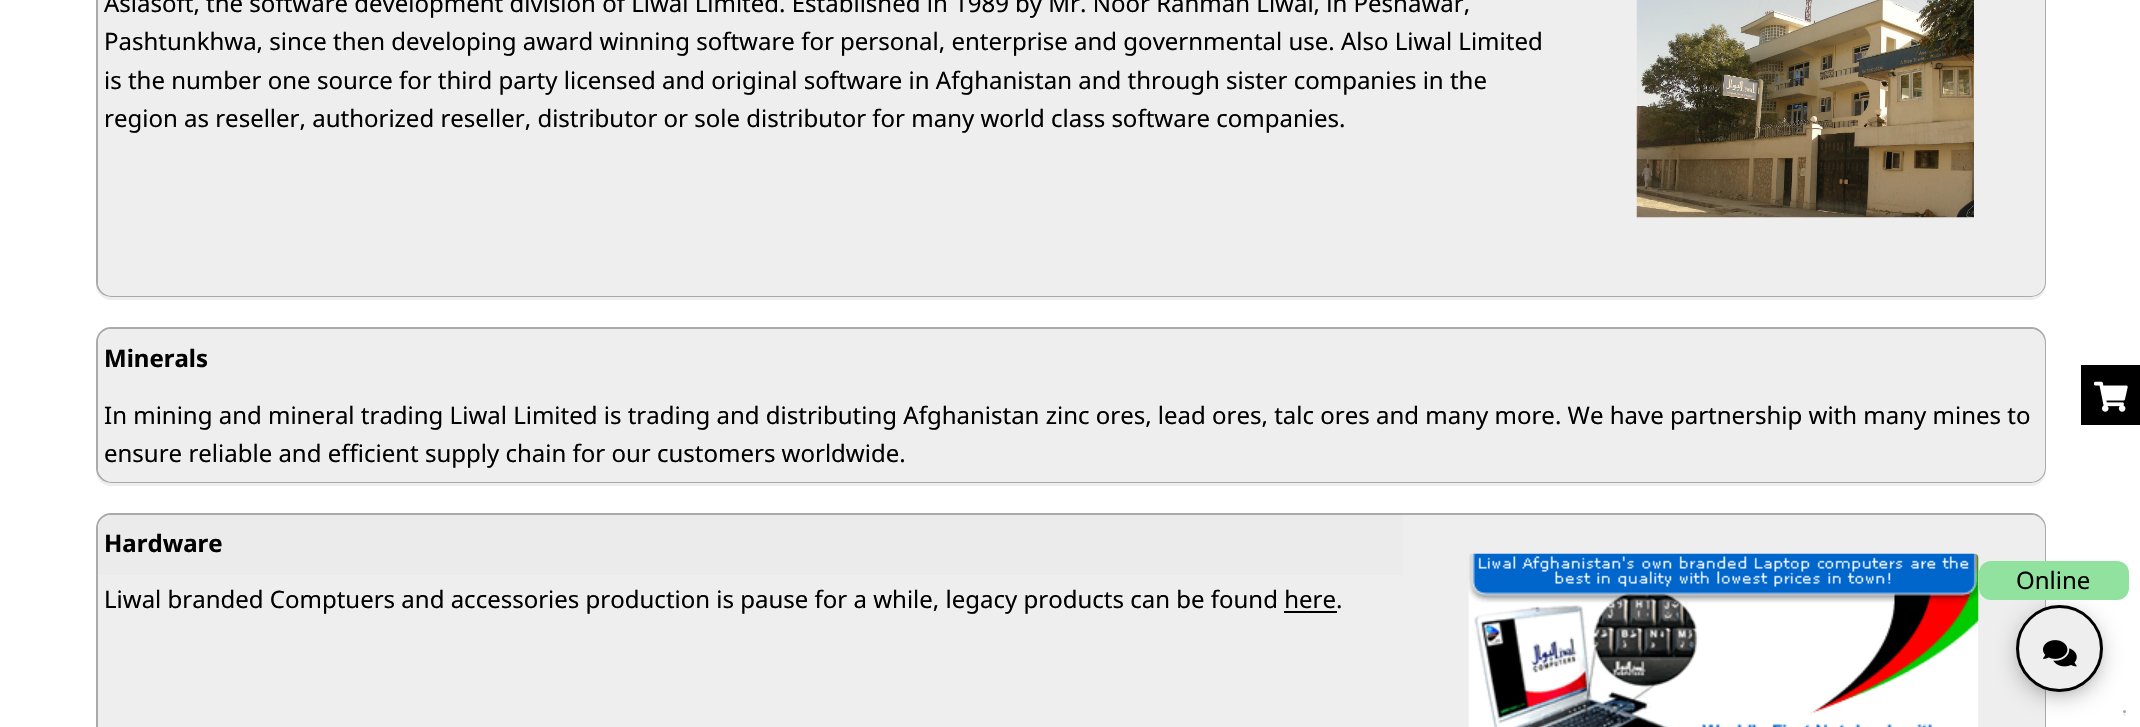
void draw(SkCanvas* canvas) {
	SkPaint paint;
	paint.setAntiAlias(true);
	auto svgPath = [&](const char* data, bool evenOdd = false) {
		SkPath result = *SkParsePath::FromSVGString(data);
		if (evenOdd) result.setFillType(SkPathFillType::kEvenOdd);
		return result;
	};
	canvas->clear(0xffffffff);
	paint.setColor(0xffeeeeee);
	canvas->drawPath(svgPath("M96 282V285C96 293 103 300 111 300H2031C2039 300 2046 293 2046 285V282C2046 290 2039 297 2031 297H111C103 297 96 290 96 282Z"), paint);
	paint.setStroke(true);
	paint.setStrokeWidth(2);
	paint.setColor(0xffaaaaaa);
	canvas->drawRoundRect(SkRect::MakeXYWH(97, -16, 1948, 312), 14, 14, paint);
	paint.setStroke(false);
	paint.setColor(0xffeeeeee);
	canvas->drawRoundRect(SkRect::MakeXYWH(98, -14, 1947, 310), 14, 14, paint);
	SkFont f1(fontMgr->matchFamilyStyle("Noto Sans", SkFontStyle::Normal()), 24);
	f1.setSubpixel(true);
	paint.setColor(0xff000000);
	canvas->drawString("Asiasoft, the software development division of Liwal Limited. Established in 1989 by Mr. Noor Rahman Liwal, in Peshawar,", 104, 12, f1, paint);
	canvas->drawString("Pashtunkhwa, since then developing award winning software for personal, enterprise and governmental use. Also Liwal Limited", 104, 50, f1, paint);
	canvas->drawString("is the number one source for third party licensed and original software in Afghanistan and through sister companies in the", 104, 89, f1, paint);
	canvas->drawString("region as reseller, authorized reseller, distributor or sole distributor for many world class software companies.", 104, 127, f1, paint);
	canvas->drawImageRect(SkImages::DeferredFromEncodedData(SkData::MakeFromFileName("img1.png")), SkRect::MakeXYWH(1636, 0, 338, 218), SkSamplingOptions());
	paint.setColor(0xffeeeeee);
	canvas->drawPath(svgPath("M96 468V471C96 479 103 486 111 486H2031C2039 486 2046 479 2046 471V468C2046 476 2039 483 2031 483H111C103 483 96 476 96 468Z"), paint);
	paint.setStroke(true);
	paint.setColor(0xffaaaaaa);
	canvas->drawRoundRect(SkRect::MakeXYWH(97, 328, 1948, 154), 14, 14, paint);
	paint.setStroke(false);
	paint.setColor(0xffeeeeee);
	canvas->drawPath(svgPath("M112 329H2031C2038.5 329 2045 335.5 2045 343V389H98V343C98 335.5 104.5 329 112 329Z"), paint);
	SkFont f2(fontMgr->matchFamilyStyle("Noto Sans", SkFontStyle::Bold()), 24);
	f2.setSubpixel(true);
	paint.setColor(0xff000000);
	canvas->drawString("Minerals", 104, 367, f2, paint);
	paint.setColor(0xffeeeeee);
	canvas->drawPath(svgPath("M98 389H2045V468C2045 475.5 2038.5 482 2031 482H112C104.5 482 98 475.5 98 468Z"), paint);
	paint.setColor(0xff000000);
	canvas->drawString("In mining and mineral trading Liwal Limited is trading and distributing Afghanistan zinc ores, lead ores, talc ores and many more. We have partnership with many mines to", 104, 424, f1, paint);
	canvas->drawString("ensure reliable and efficient supply chain for our customers worldwide.", 104, 462, f1, paint);
	paint.setStroke(true);
	paint.setColor(0xffaaaaaa);
	canvas->drawRoundRect(SkRect::MakeXYWH(97, 514, 1948, 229), 14, 14, paint);
	paint.setStroke(false);
	paint.setColor(0xffeeeeee);
	canvas->drawRoundRect(SkRect::MakeXYWH(98, 515, 1947, 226), 14, 14, paint);
	paint.setColor(0xffebebeb);
	canvas->drawPath(svgPath("M112 515H1403V575H98V529C98 521.5 104.5 515 112 515Z"), paint);
	paint.setColor(0xff000000);
	canvas->drawString("Hardware", 104, 552, f2, paint);
	canvas->drawString("Liwal branded Comptuers and accessories production is pause for a while, legacy products can be found here.", 104, 608, f1, paint);
	canvas->drawRect(SkRect::MakeXYWH(1284, 611, 53, 2), paint);
	canvas->drawImageRect(SkImages::DeferredFromEncodedData(SkData::MakeFromFileName("img2.png")), SkRect::MakeXYWH(1468, 553, 511, 174), SkSamplingOptions());
	canvas->drawRect(SkRect::MakeXYWH(2081, 365, 59, 60), paint);
	canvas->drawImageRect(SkImages::DeferredFromEncodedData(SkData::MakeFromFileName("img3.png")), SkRect::MakeXYWH(2094, 381, 34, 31), SkSamplingOptions());
	paint.setMaskFilter(SkMaskFilter::MakeBlur(kNormal_SkBlurStyle, 16));
	canvas->drawRoundRect(SkRect::MakeXYWH(2031, 626, 57, 57), 28.5, 28.5, paint);
	paint.setMaskFilter(nullptr);
	paint.setColor(0xffeeeeee);
	canvas->drawCircle(2059.5, 648.5, 42, paint);
	paint.setStroke(true);
	paint.setStrokeWidth(3);
	paint.setColor(0xff000000);
	canvas->drawCircle(2059.5, 648.5, 42, paint);
	paint.setStroke(false);
	paint.setColor(0xff91e29e);
	canvas->drawRoundRect(SkRect::MakeXYWH(1979, 561, 150, 39), 12, 12, paint);
	paint.setColor(0xff000000);
	canvas->drawString("Online", 2016, 589, f1, paint);
	canvas->drawImageRect(SkImages::DeferredFromEncodedData(SkData::MakeFromFileName("img4.png")), SkRect::MakeXYWH(2043, 640, 34, 27), SkSamplingOptions());
	paint.setColor(0xffeeeeee);
	canvas->drawCircle(2124.5, 714.5, 1.5, paint);
	paint.setColor(0xffaaaaaa);
	canvas->drawCircle(2124.5, 711.5, 1.5, paint);
}
